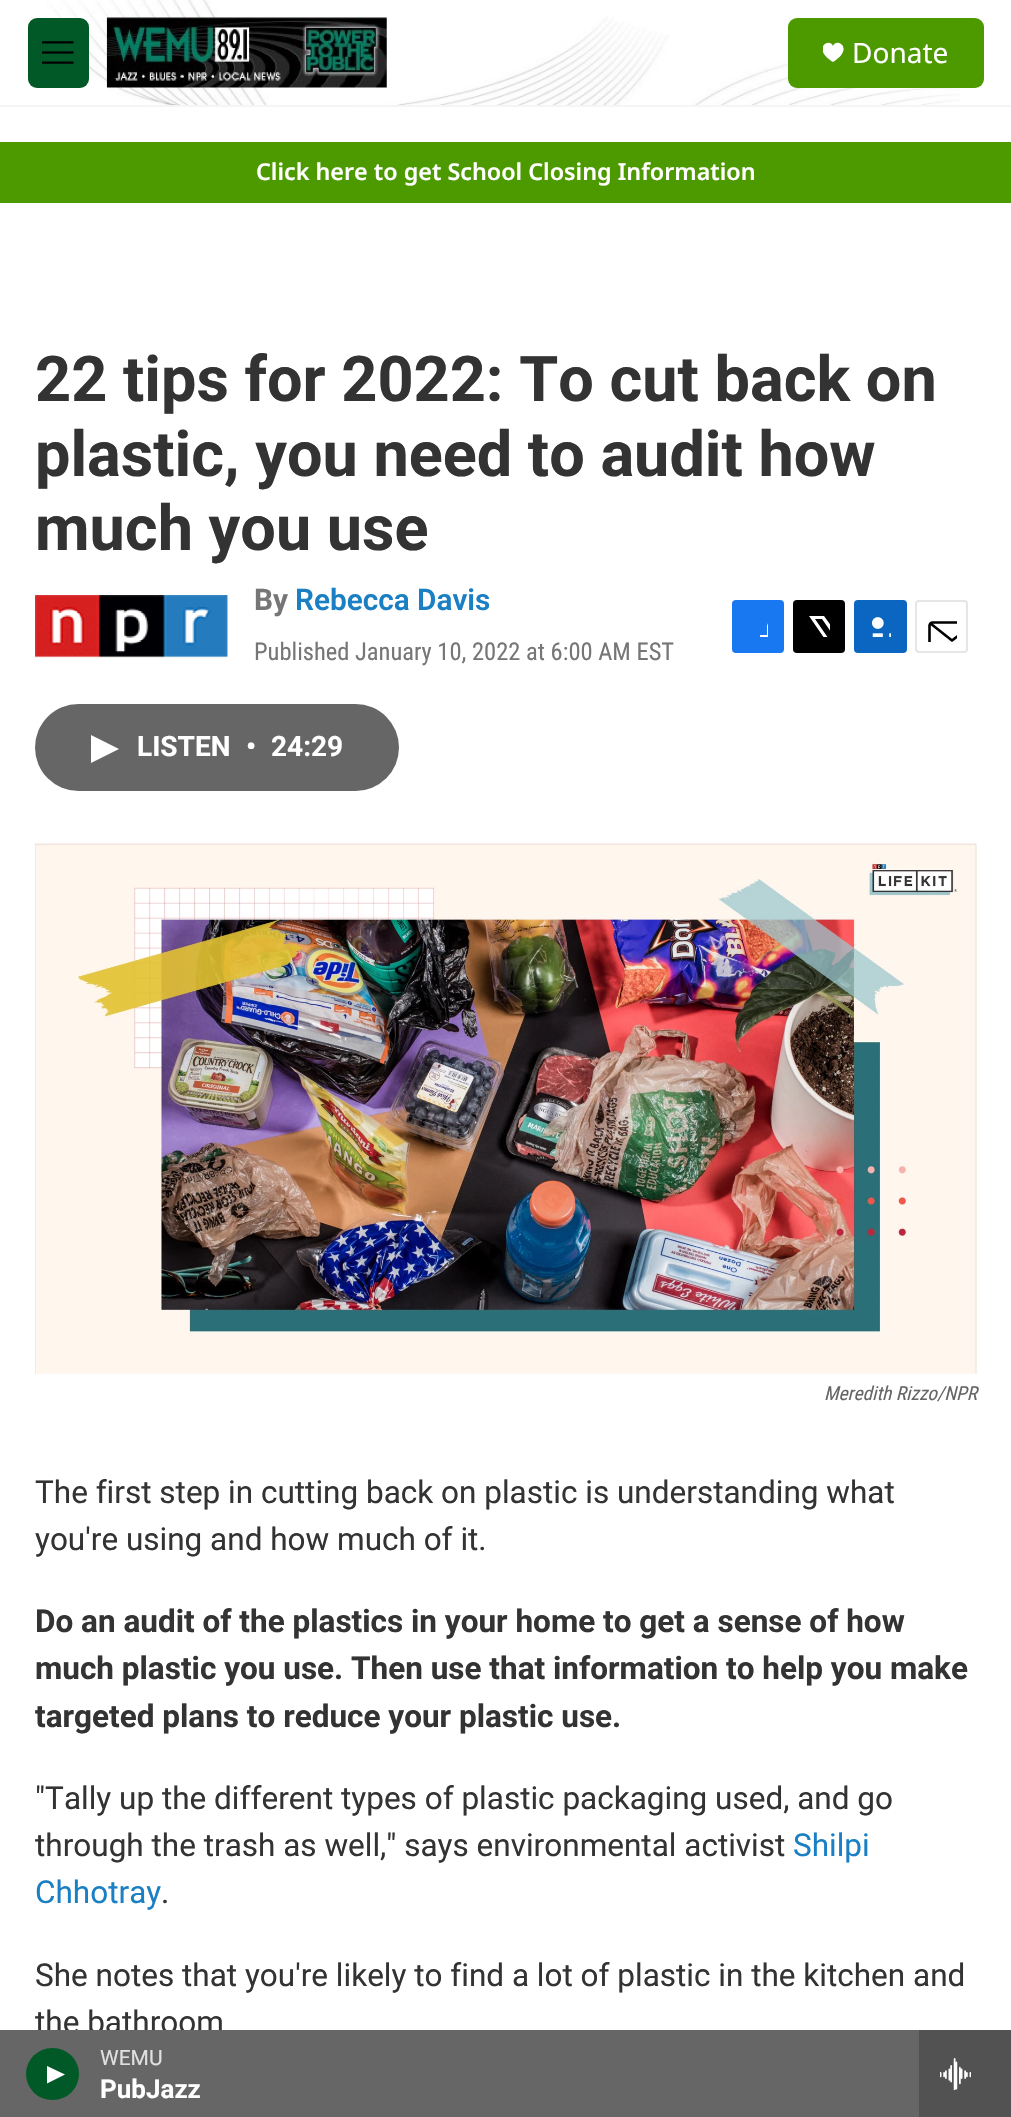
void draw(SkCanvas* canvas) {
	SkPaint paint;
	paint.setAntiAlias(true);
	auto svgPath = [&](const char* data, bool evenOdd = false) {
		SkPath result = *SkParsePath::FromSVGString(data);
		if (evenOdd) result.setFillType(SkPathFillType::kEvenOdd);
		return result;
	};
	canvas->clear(0xffffffff);
	paint.setColor(0xfff5f5f5);
	canvas->drawRect(SkRect::MakeXYWH(0, 105, 1011, 2), paint);
	canvas->drawImageRect(SkImages::DeferredFromEncodedData(SkData::MakeFromFileName("img1.png")), SkRect::MakeXYWH(44, 0, 916, 105), SkSamplingOptions());
	paint.setColor(0xff025928);
	canvas->drawRoundRect(SkRect::MakeXYWH(28, 18, 61, 70), 9, 9, paint);
	canvas->drawImageRect(SkImages::DeferredFromEncodedData(SkData::MakeFromFileName("img2.png")), SkRect::MakeXYWH(42, 41, 32, 23), SkSamplingOptions());
	canvas->drawImageRect(SkImages::DeferredFromEncodedData(SkData::MakeFromFileName("img3.png")), SkRect::MakeXYWH(106, 17, 281, 71), SkSamplingOptions());
	paint.setColor(0xff4d9900);
	canvas->drawRoundRect(SkRect::MakeXYWH(788, 18, 196, 70), 9, 9, paint);
	canvas->save();
	canvas->clipRect(SkRect::MakeXYWH(823, 42, 21, 21));
	paint.setColor(0xffffffff);
	canvas->drawPath(svgPath("M833 46C829.5 37 811 48.5 833 62C855 48.5 836.5 37 833 46Z"), paint);
	canvas->restore();
	SkFont f1(fontMgr->matchFamilyStyle("Noto Sans", SkFontStyle::Normal()), 28);
	f1.setSubpixel(true);
	canvas->drawString("Donate", 852, 63, f1, paint);
	SkFont f2(fontMgr->matchFamilyStyle("Roboto", SkFontStyle::Normal()), 31.5);
	f2.setSubpixel(true);
	paint.setColor(0xff333333);
	canvas->drawString("the bathroom", 35, 2033, f2, paint);
	paint.setColor(0xff666666);
	canvas->drawRect(SkRect::MakeXYWH(0, 2030, 919, 87), paint);
	paint.setColor(0xff025928);
	canvas->drawRoundRect(SkRect::MakeXYWH(26, 2048, 53, 52), 26, 26, paint);
	paint.setColor(0xffffffff);
	canvas->drawPath(svgPath("M47 2066L65 2074.5L47 2083.5Z"), paint);
	SkFont f3(fontMgr->matchFamilyStyle("Roboto", SkFontStyle::Normal()), 21);
	f3.setSubpixel(true);
	paint.setColor(0xffe0e0e0);
	canvas->drawString("WEMU", 100, 2065, f3, paint);
	SkFont f4(fontMgr->matchFamilyStyle("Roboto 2", SkFontStyle::Bold()), 26);
	f4.setSubpixel(true);
	paint.setColor(0xffffffff);
	canvas->drawString("PubJazz", 100, 2098, f4, paint);
	paint.setColor(0xff525252);
	canvas->drawRect(SkRect::MakeXYWH(919, 2030, 92, 87), paint);
	canvas->drawImageRect(SkImages::DeferredFromEncodedData(SkData::MakeFromFileName("img4.png")), SkRect::MakeXYWH(940, 2058, 31, 32), SkSamplingOptions());
	paint.setColor(0xff4d9a00);
	canvas->drawRect(SkRect::MakeXYWH(0, 142, 1011, 61), paint);
	SkFont f5(fontMgr->matchFamilyStyle("Noto Sans", SkFontStyle(600, SkFontStyle::kNormal_Width, SkFontStyle::kUpright_Slant)), 23.3);
	f5.setSubpixel(true);
	paint.setColor(0xffffffff);
	canvas->drawString("Click here to get School Closing Information", 256, 180, f5, paint);
	SkFont f6(fontMgr->matchFamilyStyle("Roboto", SkFontStyle::Bold()), 63);
	f6.setSubpixel(true);
	paint.setColor(0xff333333);
	canvas->drawString("22 tips for 2022: To cut back on", 35, 401, f6, paint);
	canvas->drawString("plastic, you need to audit how", 35, 476, f6, paint);
	canvas->drawString("much you use", 35, 550, f6, paint);
	canvas->drawImageRect(SkImages::DeferredFromEncodedData(SkData::MakeFromFileName("img5.png")), SkRect::MakeXYWH(35, 595, 193, 63), SkSamplingOptions());
	SkFont f7(fontMgr->matchFamilyStyle("Roboto", SkFontStyle::Bold()), 29.75);
	f7.setSubpixel(true);
	paint.setColor(0xff767676);
	canvas->drawString("By", 254, 610, f7, paint);
	SkFont f8(fontMgr->matchFamilyStyle("Roboto", SkFontStyle(600, SkFontStyle::kNormal_Width, SkFontStyle::kUpright_Slant)), 29.75);
	f8.setSubpixel(true);
	paint.setColor(0xff1a7fc3);
	canvas->drawString("Rebecca Davis", 295, 610, f8, paint);
	SkFont f9(fontMgr->matchFamilyStyle("Roboto Condensed", SkFontStyle::Normal()), 24.5);
	f9.setSubpixel(true);
	paint.setColor(0xff767676);
	canvas->drawString("Published January 10, 2022 at 6:00 AM EST", 254, 660, f9, paint);
	paint.setColor(0xff1778f2);
	canvas->drawRoundRect(SkRect::MakeXYWH(732, 600, 52, 53), 4, 4, paint);
	canvas->save();
	canvas->clipRect(SkRect::MakeXYWH(747, 616, 21, 21));
	paint.setColor(0xffffffff);
	canvas->drawPath(svgPath("M776 653H767V644H760V635H767V626C769 617.5 777 616 784 617V625C774.5 625 776 627.5 776 635H784V639.5L783 644H776Z"), paint);
	canvas->restore();
	paint.setColor(0xff000000);
	canvas->drawRoundRect(SkRect::MakeXYWH(793, 600, 52, 53), 4, 4, paint);
	canvas->save();
	canvas->clipRect(SkRect::MakeXYWH(809, 616, 21, 21));
	paint.setColor(0xffffffff);
	canvas->drawPath(svgPath("M840 638L845 645.5C845 647.5 845.5 649.5 844.5 651L822 619H815L838.5 653H834.5L831 648L827 653H822L829 645L809 616H824L838 635L845 626.5V632Z"), paint);
	canvas->restore();
	paint.setColor(0xff0a66c1);
	canvas->drawRoundRect(SkRect::MakeXYWH(854, 600, 53, 53), 4, 4, paint);
	canvas->drawImageRect(SkImages::DeferredFromEncodedData(SkData::MakeFromFileName("img6.png")), SkRect::MakeXYWH(872, 617, 19, 20), SkSamplingOptions());
	paint.setStroke(true);
	paint.setStrokeWidth(2);
	paint.setColor(0xffe6e6e6);
	canvas->drawRoundRect(SkRect::MakeXYWH(916, 601, 51, 51), 3, 3, paint);
	canvas->save();
	canvas->clipRect(SkRect::MakeXYWH(926, 611, 31, 31));
	paint.setStrokeWidth(2.6);
	paint.setStrokeCap(SkPaint::kRound_Cap);
	paint.setStrokeJoin(SkPaint::kRound_Join);
	paint.setColor(0xff000000);
	canvas->drawPath(svgPath("M974.5 649C974.5 651 973 652.5 971.5 652.5H932.5C931 652.5 929.5 651 929.5 649V625.5C929.5 624 931 622.5 932.5 622.5H971.5C973 622.5 974.5 624 974.5 625.5ZM973.5 623.5L952 640.5L930.5 623.5"), paint);
	canvas->restore();
	paint.setStroke(false);
	paint.setColor(0xff666666);
	canvas->drawRoundRect(SkRect::MakeXYWH(35, 704, 364, 87), 43.5, 43.5, paint);
	paint.setColor(0xffffffff);
	canvas->drawPath(svgPath("M91 735L119 749L91 763Z"), paint);
	SkFont f10(fontMgr->matchFamilyStyle("Roboto 2", SkFontStyle::Bold()), 28);
	f10.setSubpixel(true);
	canvas->drawString("LISTEN", 137, 756, f10, paint);
	canvas->drawString("•", 246, 756, f10, paint);
	canvas->drawString("24:29", 271, 756, f10, paint);
	canvas->drawImageRect(SkImages::DeferredFromEncodedData(SkData::MakeFromFileName("img7.png")), SkRect::MakeXYWH(35, 843, 942, 531), SkSamplingOptions());
	SkFont f11(fontMgr->matchFamilyStyle("Roboto Condensed", SkFontStyle::Italic()), 19.25);
	f11.setSubpixel(true);
	paint.setColor(0xff666666);
	canvas->drawString("Meredith Rizzo/NPR", 824, 1400, f11, paint);
	paint.setColor(0xff333333);
	canvas->drawString("The first step in cutting back on plastic is understanding what", 35, 1503, f2, paint);
	canvas->drawString("you're using and how much of it.", 35, 1550, f2, paint);
	SkFont f12(fontMgr->matchFamilyStyle("Roboto 2", SkFontStyle::Bold()), 31.5);
	f12.setSubpixel(true);
	canvas->drawString("Do an audit of the plastics in your home to get a sense of how", 35, 1632, f12, paint);
	canvas->drawString("much plastic you use. Then use that information to help you make", 35, 1679, f12, paint);
	canvas->drawString("targeted plans to reduce your plastic use.", 35, 1727, f12, paint);
	canvas->drawString("\"Tally up the different types of plastic packaging used, and go", 35, 1809, f2, paint);
	canvas->drawString("through the trash as well,\" says environmental activist", 35, 1856, f2, paint);
	paint.setColor(0xff1a7fc3);
	canvas->drawString("Shilpi", 793, 1856, f2, paint);
	canvas->drawString("Chhotray", 35, 1903, f2, paint);
	paint.setColor(0xff333333);
	canvas->drawString(".", 161, 1903, f2, paint);
	canvas->drawString("She notes that you're likely to find a lot of plastic in the kitchen and", 35, 1986, f2, paint);
}
